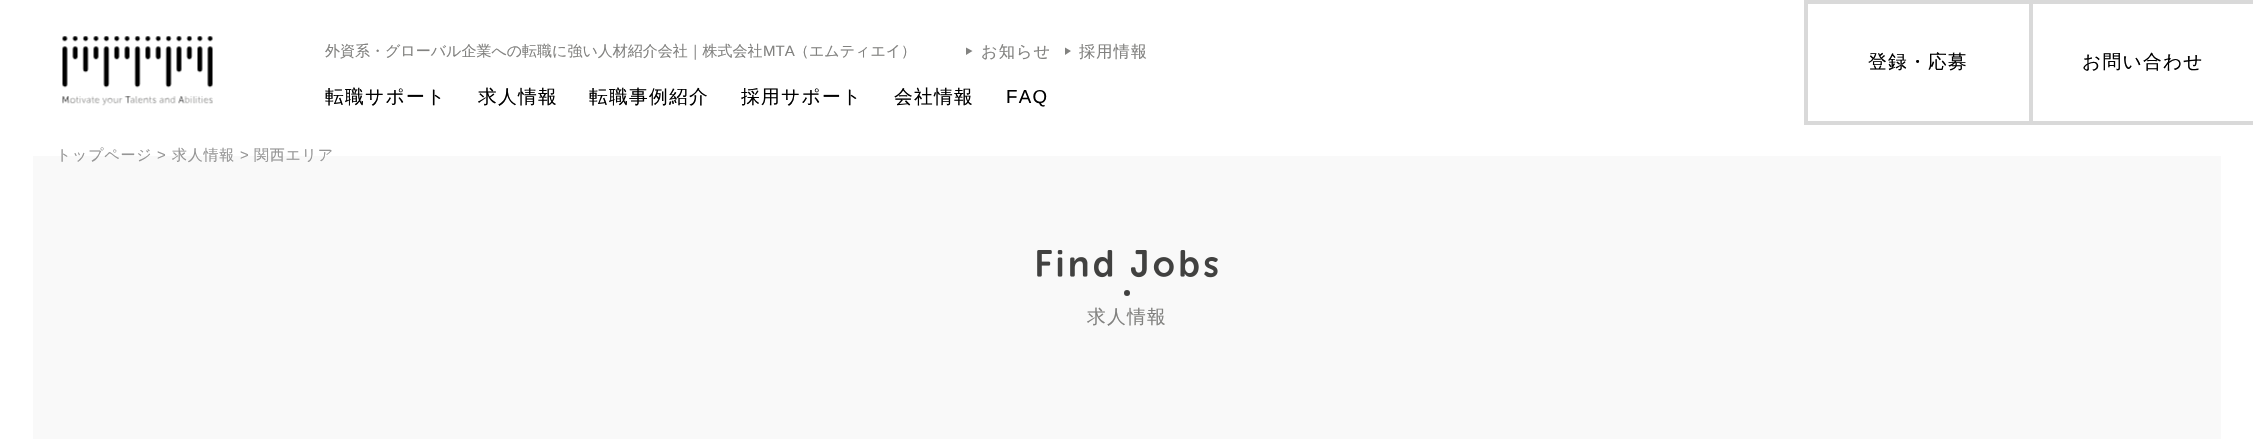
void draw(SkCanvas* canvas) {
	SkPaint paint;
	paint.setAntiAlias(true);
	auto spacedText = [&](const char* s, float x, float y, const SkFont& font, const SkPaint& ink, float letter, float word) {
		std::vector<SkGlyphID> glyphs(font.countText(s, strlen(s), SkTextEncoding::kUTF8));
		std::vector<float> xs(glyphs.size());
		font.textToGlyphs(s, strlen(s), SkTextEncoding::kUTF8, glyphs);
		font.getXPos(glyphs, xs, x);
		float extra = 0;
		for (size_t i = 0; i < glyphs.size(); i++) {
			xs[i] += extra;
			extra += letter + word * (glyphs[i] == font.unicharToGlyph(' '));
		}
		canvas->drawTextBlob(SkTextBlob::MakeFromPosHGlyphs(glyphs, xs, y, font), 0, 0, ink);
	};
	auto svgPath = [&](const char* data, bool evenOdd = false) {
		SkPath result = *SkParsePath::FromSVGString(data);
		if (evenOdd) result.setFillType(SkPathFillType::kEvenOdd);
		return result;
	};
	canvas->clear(0xffffffff);
	canvas->drawImageRect(SkImages::DeferredFromEncodedData(SkData::MakeFromFileName("img1.png")), SkRect::MakeXYWH(62, 36, 151, 70), SkSamplingOptions());
	SkFont f1(fontMgr->matchFamilyStyle("WenQuanYi Zen Hei", SkFontStyle(500, SkFontStyle::kNormal_Width, SkFontStyle::kUpright_Slant)), 15);
	f1.setSubpixel(true);
	paint.setColor(0xff828280);
	canvas->drawString("外資系・グローバル企業への転職に強い人材紹介会社｜株式会社", 325, 56, f1, paint);
	SkFont f2(fontMgr->matchFamilyStyle("Liberation Sans", SkFontStyle::Normal()), 15);
	f2.setSubpixel(true);
	canvas->drawString("MTA", 763, 56, f2, paint);
	canvas->drawString("（エムティエイ）", 794, 56, f1, paint);
	canvas->drawPath(svgPath("M966 55V47.5L972.5 51Z"), paint);
	SkFont f3(fontMgr->matchFamilyStyle("WenQuanYi Zen Hei", SkFontStyle(500, SkFontStyle::kNormal_Width, SkFontStyle::kUpright_Slant)), 16.25);
	f3.setSubpixel(true);
	spacedText("お知らせ", 981, 57, f3, paint, 1, 0);
	canvas->drawPath(svgPath("M1065 55V47.5L1071 51Z"), paint);
	spacedText("採用情報", 1079, 57, f3, paint, 1, 0);
	SkFont f4(fontMgr->matchFamilyStyle("WenQuanYi Zen Hei", SkFontStyle(500, SkFontStyle::kNormal_Width, SkFontStyle::kUpright_Slant)), 18.75);
	f4.setSubpixel(true);
	paint.setColor(0xff000000);
	spacedText("転職サポート", 325, 103, f4, paint, 1.25, 0);
	spacedText("求人情報", 478, 103, f4, paint, 1.25, 0);
	spacedText("転職事例紹介", 589, 103, f4, paint, 1.25, 0);
	spacedText("採用サポート", 741, 103, f4, paint, 1.25, 0);
	spacedText("会社情報", 894, 103, f4, paint, 1.25, 0);
	SkFont f5(fontMgr->matchFamilyStyle("Liberation Sans", SkFontStyle::Normal()), 18.75);
	f5.setSubpixel(true);
	spacedText("FAQ", 1006, 103, f5, paint, 1.25, 0);
	paint.setColor(0xffd9d9d9);
	canvas->drawRect(SkRect::MakeXYWH(1804, 0, 449, 4), paint);
	canvas->drawRect(SkRect::MakeXYWH(1804, 121, 449, 4), paint);
	canvas->drawRect(SkRect::MakeXYWH(1804, 0, 4, 125), paint);
	paint.setColor(0xff000000);
	spacedText("登録・応募", 1868, 68, f4, paint, 1.25, 0);
	paint.setColor(0xffd9d9d9);
	canvas->drawRect(SkRect::MakeXYWH(2029, 0, 4, 125), paint);
	paint.setColor(0xff000000);
	spacedText("お問い合わせ", 2082, 68, f4, paint, 1.25, 0);
	paint.setColor(0xfff9f9f9);
	canvas->drawRect(SkRect::MakeXYWH(33, 156, 2188, 283), paint);
	paint.setColor(0xff969696);
	spacedText("トップページ", 56, 160, f1, paint, 0.75, 0);
	spacedText(">", 157, 160, f2, paint, 0.75, 0);
	spacedText("求人情報", 172, 160, f1, paint, 0.75, 0);
	spacedText(">", 240, 160, f2, paint, 0.75, 0);
	spacedText("関西エリア", 254, 160, f1, paint, 0.75, 0);
	canvas->drawImageRect(SkImages::DeferredFromEncodedData(SkData::MakeFromFileName("img2.png")), SkRect::MakeXYWH(1037, 250, 181, 28), SkSamplingOptions());
	paint.setColor(0xff414140);
	canvas->drawCircle(1127, 293, 3, paint);
	paint.setColor(0xff828280);
	spacedText("求人情報", 1087, 323, f4, paint, 1.25, 0);
}
